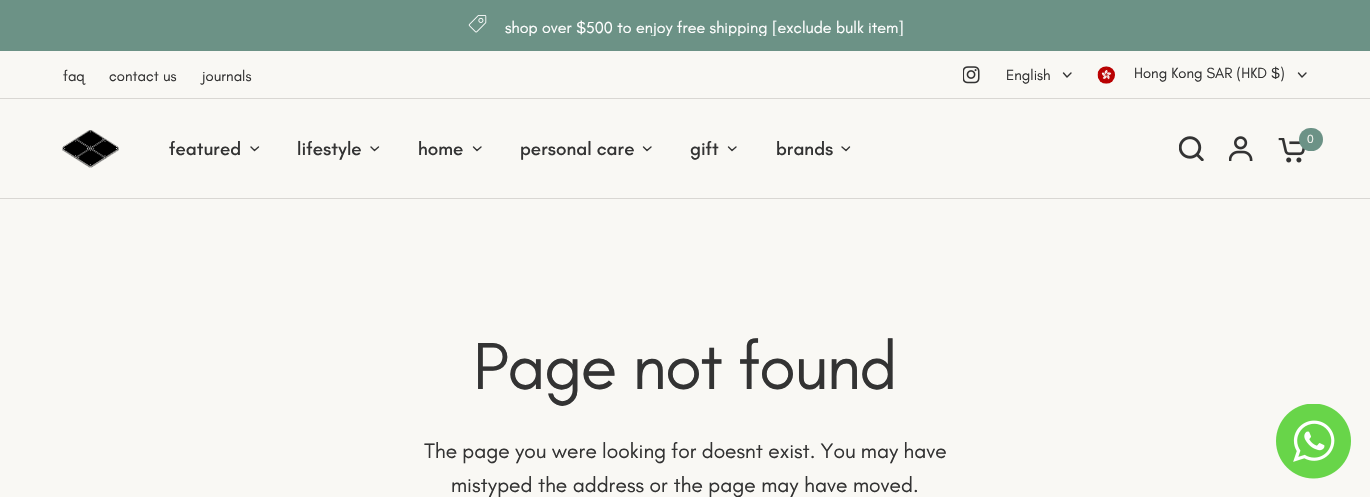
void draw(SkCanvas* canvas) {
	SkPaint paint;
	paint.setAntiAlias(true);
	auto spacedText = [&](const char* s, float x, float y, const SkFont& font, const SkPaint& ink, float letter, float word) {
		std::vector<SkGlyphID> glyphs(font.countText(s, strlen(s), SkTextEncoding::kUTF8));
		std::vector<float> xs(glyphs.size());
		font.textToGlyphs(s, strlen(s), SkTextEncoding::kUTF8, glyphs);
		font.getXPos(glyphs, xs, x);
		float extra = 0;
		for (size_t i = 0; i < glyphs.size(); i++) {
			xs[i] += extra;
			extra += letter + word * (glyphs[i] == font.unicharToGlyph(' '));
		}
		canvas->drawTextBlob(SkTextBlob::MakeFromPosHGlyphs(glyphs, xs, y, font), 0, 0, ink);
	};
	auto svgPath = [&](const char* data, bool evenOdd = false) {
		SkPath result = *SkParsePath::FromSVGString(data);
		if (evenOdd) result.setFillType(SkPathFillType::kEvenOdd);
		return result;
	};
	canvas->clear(0xfff9f8f4);
	paint.setColor(0xff6c9286);
	canvas->drawRect(SkRect::MakeXYWH(0, 0, 1370, 51), paint);
	canvas->drawImageRect(SkImages::DeferredFromEncodedData(SkData::MakeFromFileName("img1.png")), SkRect::MakeXYWH(468, 15, 19, 18), SkSamplingOptions());
	canvas->save();
	canvas->clipRect(SkRect::MakeXYWH(373, 15, 625, 21));
	SkFont f1(fontMgr->matchFamilyStyle("Teachers", SkFontStyle::Normal()), 16.25);
	f1.setSubpixel(true);
	paint.setColor(0xffffffff);
	canvas->drawString("shop over $500 to enjoy free shipping [exclude bulk item]", 505, 33, f1, paint);
	canvas->restore();
	paint.setColor(0xffd9d7d3);
	canvas->drawRect(SkRect::MakeXYWH(0, 98, 1370, 1), paint);
	SkFont f2(fontMgr->matchFamilyStyle("Teachers", SkFontStyle::Normal()), 15);
	f2.setSubpixel(true);
	paint.setColor(0xff333333);
	canvas->drawString("faq", 63, 81, f2, paint);
	canvas->drawString("contact us", 109, 81, f2, paint);
	canvas->drawString("journals", 202, 81, f2, paint);
	canvas->drawImageRect(SkImages::DeferredFromEncodedData(SkData::MakeFromFileName("img2.png")), SkRect::MakeXYWH(963, 66, 17, 18), SkSamplingOptions());
	canvas->drawString("English", 1006, 80, f2, paint);
	paint.setStroke(true);
	paint.setStrokeWidth(1.4);
	paint.setStrokeCap(SkPaint::kRound_Cap);
	paint.setStrokeJoin(SkPaint::kRound_Join);
	canvas->drawPath(svgPath("M1071 73L1067 77L1063.5 73"), paint);
	canvas->drawImageRect(SkImages::DeferredFromEncodedData(SkData::MakeFromFileName("img3.png")), SkRect::MakeXYWH(1097, 66, 18, 18), SkSamplingOptions());
	paint.setStroke(false);
	canvas->drawString("Hong Kong SAR (HKD $)", 1134, 78, f2, paint);
	paint.setStroke(true);
	canvas->drawPath(svgPath("M1306 73L1302 77L1298.5 73"), paint);
	canvas->drawImageRect(SkImages::DeferredFromEncodedData(SkData::MakeFromFileName("img4.png")), SkRect::MakeXYWH(1179, 136, 25, 25), SkSamplingOptions());
	canvas->drawImageRect(SkImages::DeferredFromEncodedData(SkData::MakeFromFileName("img5.png")), SkRect::MakeXYWH(1229, 136, 24, 25), SkSamplingOptions());
	canvas->drawImageRect(SkImages::DeferredFromEncodedData(SkData::MakeFromFileName("img6.png")), SkRect::MakeXYWH(1278, 138, 27, 25), SkSamplingOptions());
	paint.setStroke(false);
	paint.setColor(0xff6c9286);
	canvas->drawRoundRect(SkRect::MakeXYWH(1299, 128, 24, 23), 11.5, 11.5, paint);
	SkFont f3(fontMgr->matchFamilyStyle("Teachers", SkFontStyle::Normal()), 12);
	f3.setSubpixel(true);
	paint.setColor(0xfff9f8f3);
	canvas->drawString("0", 1307, 143, f3, paint);
	canvas->drawImageRect(SkImages::DeferredFromEncodedData(SkData::MakeFromFileName("img7.png")), SkRect::MakeXYWH(62, 130, 57, 38), SkSamplingOptions());
	SkFont f4(fontMgr->matchFamilyStyle("Teachers", SkFontStyle(500, SkFontStyle::kNormal_Width, SkFontStyle::kUpright_Slant)), 18.75);
	f4.setSubpixel(true);
	paint.setColor(0xff333333);
	canvas->drawString("featured", 169, 155, f4, paint);
	paint.setStroke(true);
	canvas->drawPath(svgPath("M258.5 147L254.5 150.5L251 147"), paint);
	paint.setStroke(false);
	canvas->drawString("lifestyle", 297, 155, f4, paint);
	paint.setStroke(true);
	canvas->drawPath(svgPath("M378.5 147L374.5 150.5L371 147"), paint);
	paint.setStroke(false);
	canvas->drawString("home", 418, 155, f4, paint);
	paint.setStroke(true);
	canvas->drawPath(svgPath("M481 147L477 150.5L473.5 147"), paint);
	paint.setStroke(false);
	canvas->drawString("personal care", 520, 155, f4, paint);
	paint.setStroke(true);
	canvas->drawPath(svgPath("M651 147L647 150.5L643.5 147"), paint);
	paint.setStroke(false);
	canvas->drawString("gift", 690, 155, f4, paint);
	paint.setStroke(true);
	canvas->drawPath(svgPath("M736 147L732 150.5L728.5 147"), paint);
	paint.setStroke(false);
	canvas->drawString("brands", 776, 155, f4, paint);
	paint.setStroke(true);
	canvas->drawPath(svgPath("M849.5 147L846 150.5L842 147"), paint);
	paint.setStroke(false);
	paint.setColor(0xffd9d7d3);
	canvas->drawRect(SkRect::MakeXYWH(0, 198, 1370, 1), paint);
	SkFont f5(fontMgr->matchFamilyStyle("Teachers", SkFontStyle::Normal()), 67.5);
	f5.setSubpixel(true);
	paint.setColor(0xff333333);
	spacedText("Page not found", 473, 389, f5, paint, -1.4, 0);
	SkFont f6(fontMgr->matchFamilyStyle("Teachers", SkFontStyle::Normal()), 21.25);
	f6.setSubpixel(true);
	spacedText("The page you were looking for doesnt exist. You may have", 424, 458, f6, paint, 0, -0.6);
	spacedText("mistyped the address or the page may have moved.", 451, 492, f6, paint, 0, -0.25);
	canvas->drawImageRect(SkImages::DeferredFromEncodedData(SkData::MakeFromFileName("img8.png")), SkRect::MakeXYWH(1276, 404, 75, 75), SkSamplingOptions());
}
